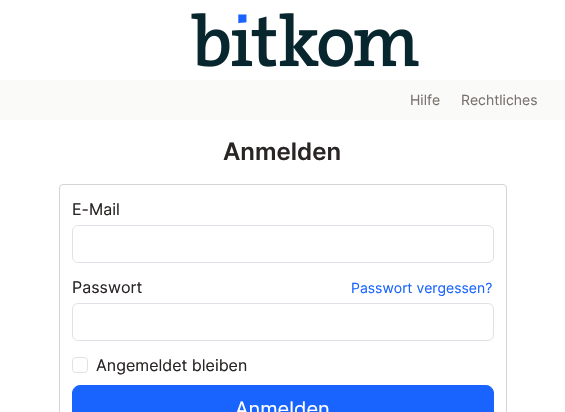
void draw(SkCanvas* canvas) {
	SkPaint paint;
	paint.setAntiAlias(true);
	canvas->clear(0xffffffff);
	canvas->drawImageRect(SkImages::DeferredFromEncodedData(SkData::MakeFromFileName("img1.png")), SkRect::MakeXYWH(191, 13, 228, 54), SkSamplingOptions());
	paint.setColor(0xfffafaf9);
	canvas->drawRect(SkRect::MakeXYWH(0, 80, 565, 40), paint);
	SkFont f1(fontMgr->matchFamilyStyle("Inter", SkFontStyle::Normal()), 14);
	f1.setSubpixel(true);
	paint.setColor(0xff78716c);
	canvas->drawString("Hilfe", 410, 105, f1, paint);
	canvas->drawString("Rechtliches", 461, 105, f1, paint);
	SkFont f2(fontMgr->matchFamilyStyle("Inter", SkFontStyle(600, SkFontStyle::kNormal_Width, SkFontStyle::kUpright_Slant)), 24);
	f2.setSubpixel(true);
	paint.setColor(0xff292524);
	canvas->drawString("Anmelden", 223, 160, f2, paint);
	paint.setStroke(true);
	paint.setStrokeWidth(1);
	paint.setColor(0xffd6d3d1);
	canvas->drawRoundRect(SkRect::MakeXYWH(59.5, 184.5, 447, 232), 3.5, 3.5, paint);
	SkFont f3(fontMgr->matchFamilyStyle("Inter", SkFontStyle::Normal()), 16);
	f3.setSubpixel(true);
	paint.setStroke(false);
	paint.setColor(0xff292524);
	canvas->drawString("E-Mail", 72, 215, f3, paint);
	paint.setStroke(true);
	paint.setColor(0xffdee2e6);
	canvas->drawRoundRect(SkRect::MakeXYWH(72.5, 225.5, 421, 37), 5.5, 5.5, paint);
	paint.setStroke(false);
	paint.setColor(0xff292524);
	canvas->drawString("Passwort", 72, 293, f3, paint);
	paint.setColor(0xff1964ff);
	canvas->drawString("Passwort vergessen?", 351, 293, f1, paint);
	paint.setStroke(true);
	paint.setColor(0xffdee2e6);
	canvas->drawRoundRect(SkRect::MakeXYWH(72.5, 303.5, 421, 37), 5.5, 5.5, paint);
	canvas->drawRoundRect(SkRect::MakeXYWH(72.5, 357.5, 15, 15), 3.5, 3.5, paint);
	paint.setStroke(false);
	paint.setColor(0xff292524);
	canvas->drawString("Angemeldet bleiben", 96, 371, f3, paint);
	paint.setColor(0xff1964ff);
	canvas->drawRoundRect(SkRect::MakeXYWH(72.5, 385.5, 421, 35), 7.5, 7.5, paint);
	paint.setStroke(true);
	canvas->drawRoundRect(SkRect::MakeXYWH(72.5, 385.5, 421, 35), 7.5, 7.5, paint);
	SkFont f4(fontMgr->matchFamilyStyle("Inter", SkFontStyle::Normal()), 20);
	f4.setSubpixel(true);
	paint.setStroke(false);
	paint.setColor(0xffffffff);
	canvas->drawString("Anmelden", 235, 416, f4, paint);
}
